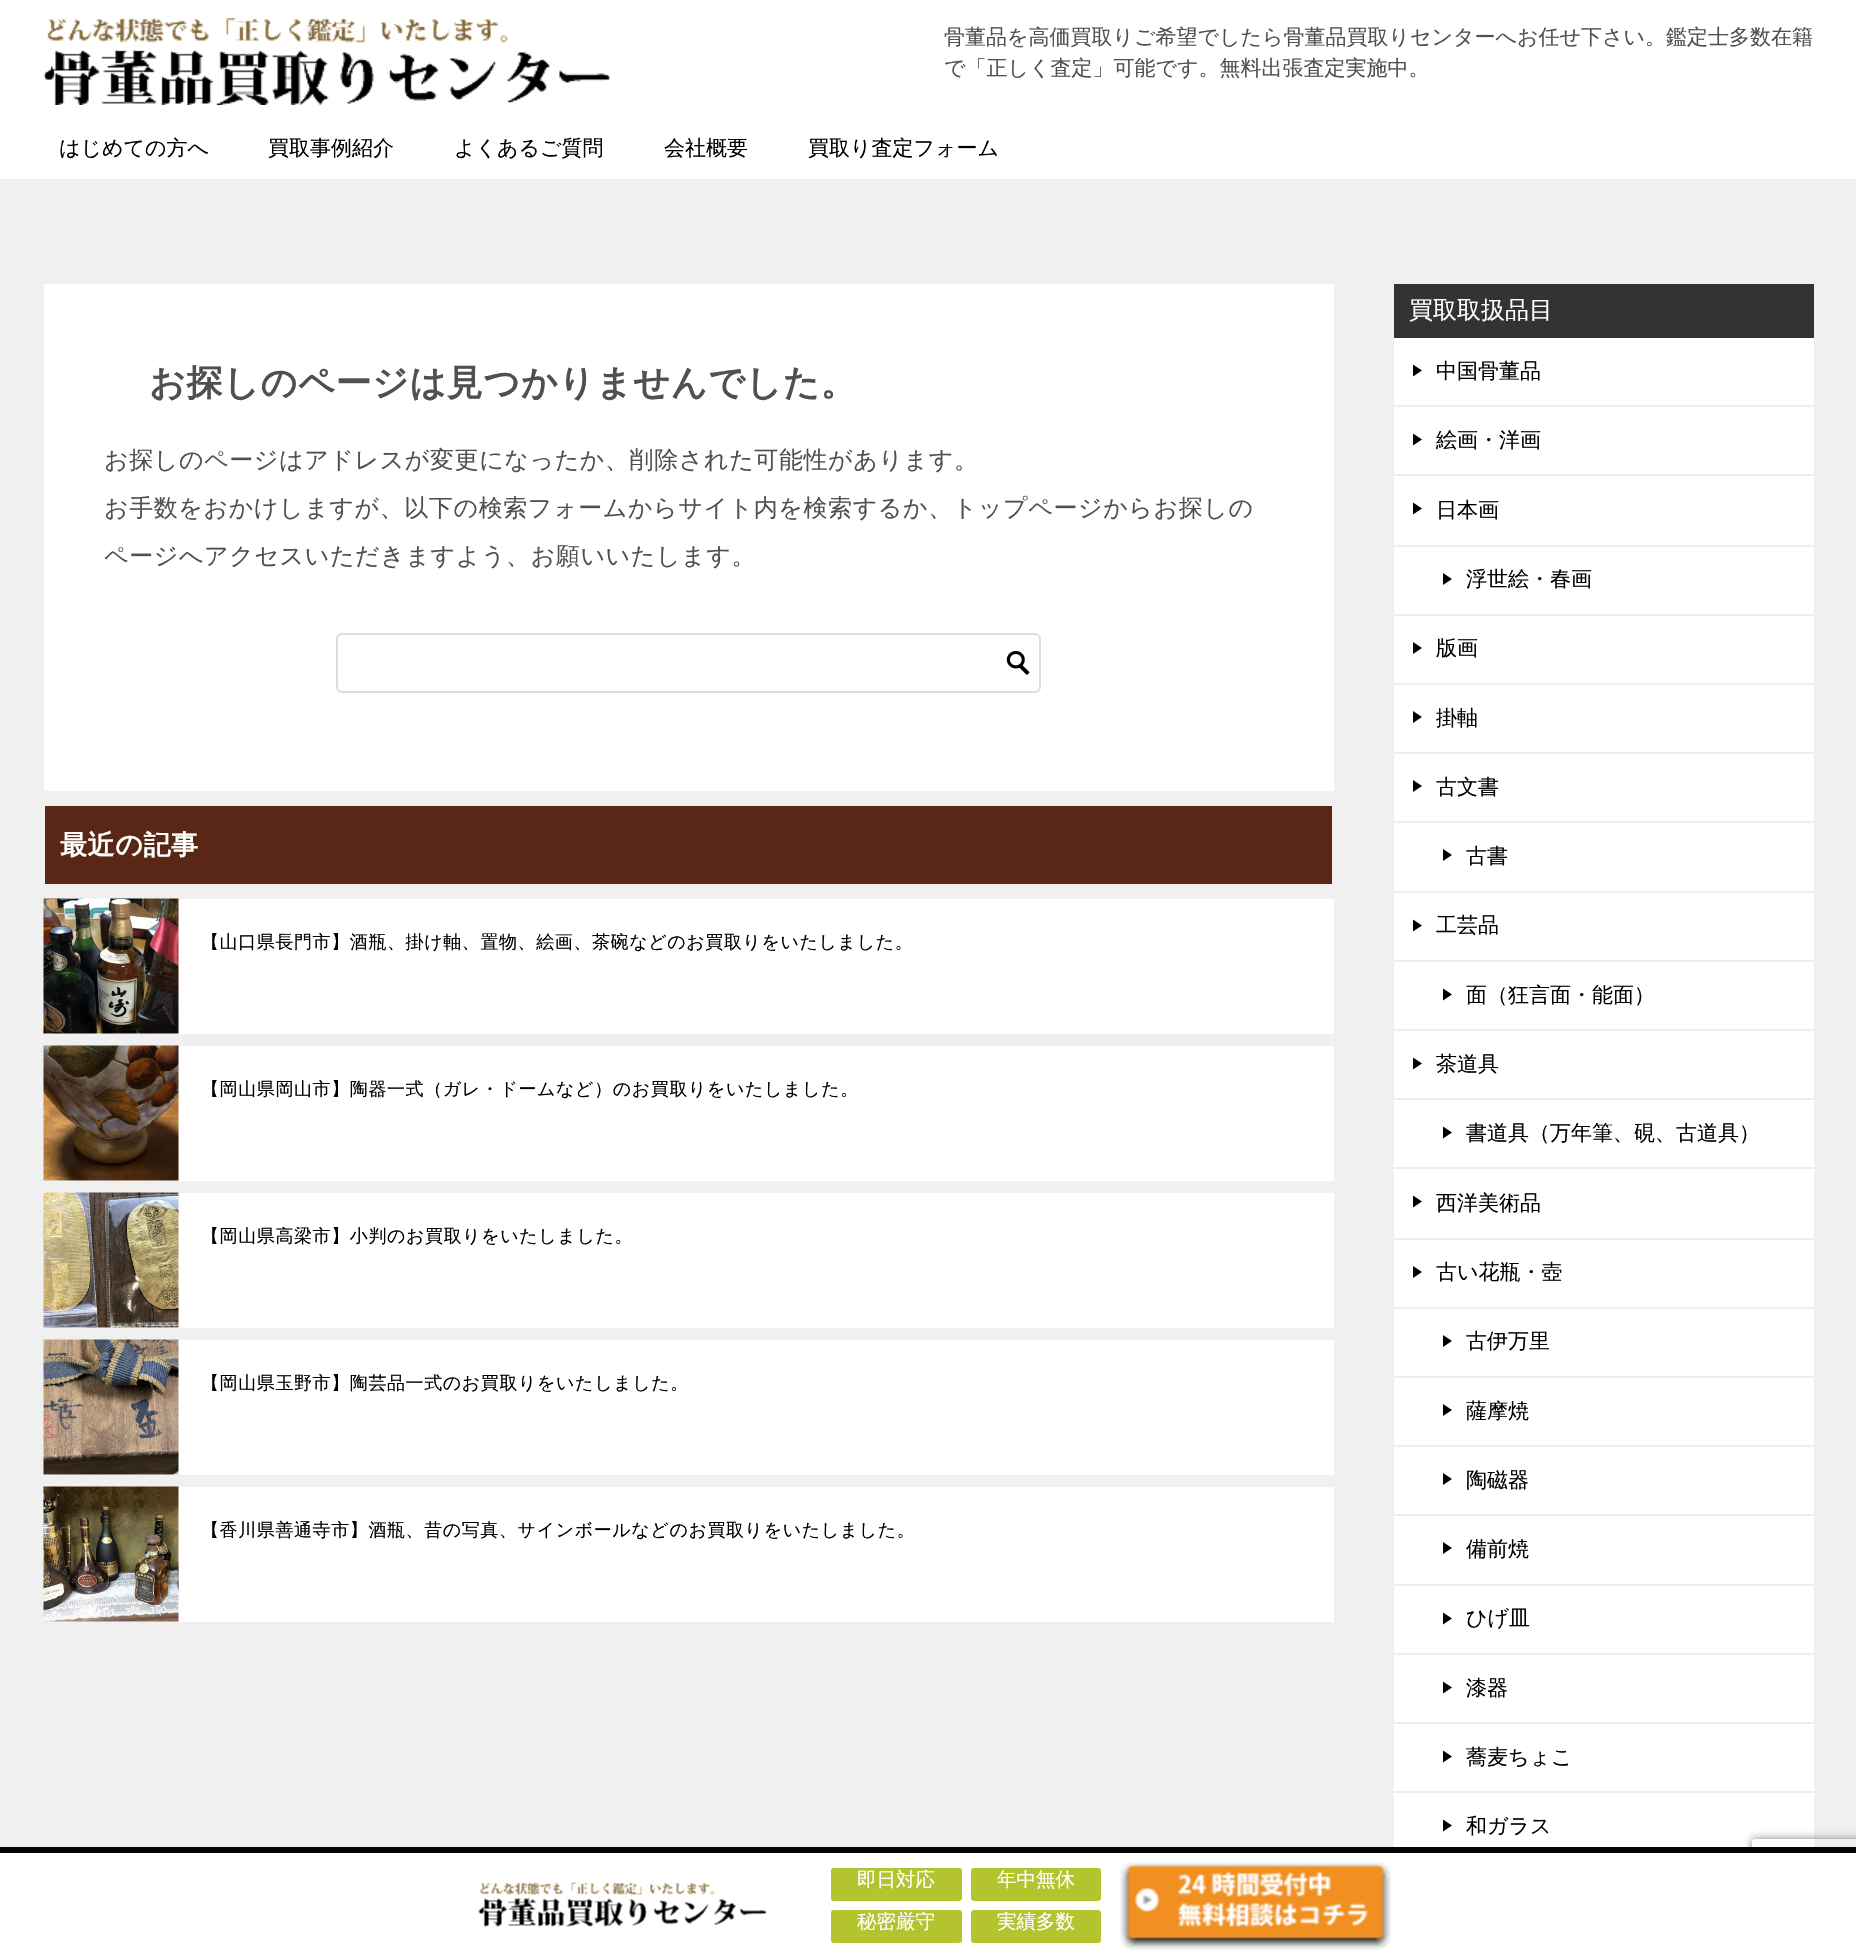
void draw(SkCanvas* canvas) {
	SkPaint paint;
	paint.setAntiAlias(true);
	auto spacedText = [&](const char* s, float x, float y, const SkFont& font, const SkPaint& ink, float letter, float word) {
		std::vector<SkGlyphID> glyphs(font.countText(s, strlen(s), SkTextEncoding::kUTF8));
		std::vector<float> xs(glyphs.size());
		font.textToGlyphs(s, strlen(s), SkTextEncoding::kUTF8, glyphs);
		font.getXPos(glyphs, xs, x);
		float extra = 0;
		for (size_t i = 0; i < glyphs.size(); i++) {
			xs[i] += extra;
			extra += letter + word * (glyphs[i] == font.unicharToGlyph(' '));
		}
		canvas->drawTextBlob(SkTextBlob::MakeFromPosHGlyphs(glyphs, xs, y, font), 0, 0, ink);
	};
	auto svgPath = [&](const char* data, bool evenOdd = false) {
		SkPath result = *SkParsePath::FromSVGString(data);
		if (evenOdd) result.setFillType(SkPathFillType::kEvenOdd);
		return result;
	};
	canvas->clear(0xfff0f0f0);
	paint.setColor(0xffffffff);
	canvas->drawRect(SkRect::MakeXYWH(0, 0, 1856, 179), paint);
	canvas->drawImageRect(SkImages::DeferredFromEncodedData(SkData::MakeFromFileName("img1.png")), SkRect::MakeXYWH(43, 18, 568, 87), SkSamplingOptions());
	SkFont f1(fontMgr->matchFamilyStyle("WenQuanYi Zen Hei", SkFontStyle(500, SkFontStyle::kNormal_Width, SkFontStyle::kUpright_Slant)), 21);
	f1.setSubpixel(true);
	paint.setColor(0xff505050);
	canvas->drawString("骨董品を高価買取りご希望でしたら骨董品買取りセンターへお任せ下さい。鑑定士多数在籍", 944, 44, f1, paint);
	canvas->drawString("で「正しく査定」可能です。無料出張査定実施中。", 944, 75, f1, paint);
	paint.setColor(0xff000000);
	canvas->drawString("はじめての方へ", 59, 155, f1, paint);
	canvas->drawString("買取事例紹介", 268, 155, f1, paint);
	canvas->drawString("よくあるご質問", 454, 155, f1, paint);
	canvas->drawString("会社概要", 664, 155, f1, paint);
	canvas->drawString("買取り査定フォーム", 808, 155, f1, paint);
	paint.setColor(0xffffffff);
	canvas->drawRect(SkRect::MakeXYWH(44, 284, 1290, 507), paint);
	SkFont f2(fontMgr->matchFamilyStyle("WenQuanYi Zen Hei", SkFontStyle::Bold()), 36);
	f2.setSubpixel(true);
	paint.setColor(0xff505050);
	spacedText("お探しのページは見つかりませんでした。", 149, 395, f2, paint, 0.6, 0);
	SkFont f3(fontMgr->matchFamilyStyle("WenQuanYi Zen Hei", SkFontStyle(500, SkFontStyle::kNormal_Width, SkFontStyle::kUpright_Slant)), 24);
	f3.setSubpixel(true);
	spacedText("お探しのページはアドレスが変更になったか、削除された可能性があります。", 104, 468, f3, paint, 0.6, 0);
	spacedText("お手数をおかけしますが、以下の検索フォームからサイト内を検索するか、トップページからお探しの", 104, 516, f3, paint, 0.6, 0);
	spacedText("ページへアクセスいただきますよう、お願いいたします。", 104, 564, f3, paint, 0.6, 0);
	paint.setStroke(true);
	paint.setStrokeWidth(2);
	paint.setColor(0xffdddddd);
	canvas->drawRoundRect(SkRect::MakeXYWH(337, 634, 703, 58), 5, 5, paint);
	canvas->drawImageRect(SkImages::DeferredFromEncodedData(SkData::MakeFromFileName("img2.png")), SkRect::MakeXYWH(1006, 651, 24, 24), SkSamplingOptions());
	paint.setStroke(false);
	paint.setColor(0xff5a2716);
	canvas->drawRect(SkRect::MakeXYWH(45, 806, 1287, 78), paint);
	SkFont f4(fontMgr->matchFamilyStyle("WenQuanYi Zen Hei", SkFontStyle::Bold()), 27);
	f4.setSubpixel(true);
	paint.setColor(0xffffffff);
	spacedText("最近の記事", 60, 854, f4, paint, 0.6, 0);
	canvas->drawRect(SkRect::MakeXYWH(44, 899, 1290, 135), paint);
	canvas->drawImageRect(SkImages::DeferredFromEncodedData(SkData::MakeFromFileName("img3.png")), SkRect::MakeXYWH(43, 898, 136, 136), SkSamplingOptions());
	SkFont f5(fontMgr->matchFamilyStyle("WenQuanYi Zen Hei", SkFontStyle(500, SkFontStyle::kNormal_Width, SkFontStyle::kUpright_Slant)), 18);
	f5.setSubpixel(true);
	paint.setColor(0xff000000);
	spacedText("【山口県長門市】酒瓶、掛け軸、置物、絵画、茶碗などのお買取りをいたしました。", 201, 948, f5, paint, 0.6, 0);
	paint.setColor(0xffffffff);
	canvas->drawRect(SkRect::MakeXYWH(44, 1046, 1290, 135), paint);
	canvas->drawImageRect(SkImages::DeferredFromEncodedData(SkData::MakeFromFileName("img4.png")), SkRect::MakeXYWH(43, 1045, 136, 136), SkSamplingOptions());
	paint.setColor(0xff000000);
	spacedText("【岡山県岡山市】陶器一式（ガレ・ドームなど）のお買取りをいたしました。", 201, 1095, f5, paint, 0.6, 0);
	paint.setColor(0xffffffff);
	canvas->drawRect(SkRect::MakeXYWH(44, 1193, 1290, 135), paint);
	canvas->drawImageRect(SkImages::DeferredFromEncodedData(SkData::MakeFromFileName("img5.png")), SkRect::MakeXYWH(43, 1192, 136, 136), SkSamplingOptions());
	paint.setColor(0xff000000);
	spacedText("【岡山県高梁市】小判のお買取りをいたしました。", 201, 1242, f5, paint, 0.6, 0);
	paint.setColor(0xffffffff);
	canvas->drawRect(SkRect::MakeXYWH(44, 1340, 1290, 135), paint);
	canvas->drawImageRect(SkImages::DeferredFromEncodedData(SkData::MakeFromFileName("img6.png")), SkRect::MakeXYWH(43, 1339, 136, 136), SkSamplingOptions());
	paint.setColor(0xff000000);
	spacedText("【岡山県玉野市】陶芸品一式のお買取りをいたしました。", 201, 1389, f5, paint, 0.6, 0);
	paint.setColor(0xffffffff);
	canvas->drawRect(SkRect::MakeXYWH(44, 1487, 1290, 135), paint);
	canvas->drawImageRect(SkImages::DeferredFromEncodedData(SkData::MakeFromFileName("img7.png")), SkRect::MakeXYWH(43, 1486, 136, 136), SkSamplingOptions());
	paint.setColor(0xff000000);
	spacedText("【香川県善通寺市】酒瓶、昔の写真、サインボールなどのお買取りをいたしました。", 201, 1536, f5, paint, 0.6, 0);
	paint.setColor(0xffffffff);
	canvas->drawRect(SkRect::MakeXYWH(1394, 338, 420, 1509), paint);
	paint.setColor(0xff333333);
	canvas->drawRect(SkRect::MakeXYWH(1394, 284, 420, 54), paint);
	paint.setColor(0xffffffff);
	canvas->drawString("買取取扱品目", 1409, 318, f3, paint);
	paint.setColor(0xffeeeeee);
	canvas->drawRect(SkRect::MakeXYWH(1394, 405, 420, 2), paint);
	paint.setColor(0xff000000);
	canvas->drawPath(svgPath("M1413 376.5V364.5L1422 370.5Z"), paint);
	canvas->drawString("中国骨董品", 1436, 378, f1, paint);
	paint.setColor(0xffeeeeee);
	canvas->drawRect(SkRect::MakeXYWH(1394, 474, 420, 2), paint);
	paint.setColor(0xff000000);
	canvas->drawPath(svgPath("M1413 445.5V433.5L1422 439.5Z"), paint);
	canvas->drawString("絵画・洋画", 1436, 447, f1, paint);
	paint.setColor(0xffeeeeee);
	canvas->drawRect(SkRect::MakeXYWH(1394, 614, 420, 2), paint);
	paint.setColor(0xff000000);
	canvas->drawPath(svgPath("M1413 514.5V502.5L1422 508.5Z"), paint);
	canvas->drawString("日本画", 1436, 517, f1, paint);
	paint.setColor(0xffeeeeee);
	canvas->drawRect(SkRect::MakeXYWH(1394, 545, 420, 2), paint);
	paint.setColor(0xff000000);
	canvas->drawPath(svgPath("M1443 585V573L1452 579Z"), paint);
	canvas->drawString("浮世絵・春画", 1466, 586, f1, paint);
	paint.setColor(0xffeeeeee);
	canvas->drawRect(SkRect::MakeXYWH(1394, 683, 420, 2), paint);
	paint.setColor(0xff000000);
	canvas->drawPath(svgPath("M1413 654V642L1422 648Z"), paint);
	canvas->drawString("版画", 1436, 655, f1, paint);
	paint.setColor(0xffeeeeee);
	canvas->drawRect(SkRect::MakeXYWH(1394, 752, 420, 2), paint);
	paint.setColor(0xff000000);
	canvas->drawPath(svgPath("M1413 723V711L1422 717Z"), paint);
	canvas->drawString("掛軸", 1436, 725, f1, paint);
	paint.setColor(0xffeeeeee);
	canvas->drawRect(SkRect::MakeXYWH(1394, 891, 420, 2), paint);
	paint.setColor(0xff000000);
	canvas->drawPath(svgPath("M1413 792V780L1422 786Z"), paint);
	canvas->drawString("古文書", 1436, 794, f1, paint);
	paint.setColor(0xffeeeeee);
	canvas->drawRect(SkRect::MakeXYWH(1394, 821, 420, 2), paint);
	paint.setColor(0xff000000);
	canvas->drawPath(svgPath("M1443 861V849L1452 855Z"), paint);
	canvas->drawString("古書", 1466, 863, f1, paint);
	paint.setColor(0xffeeeeee);
	canvas->drawRect(SkRect::MakeXYWH(1394, 1029, 420, 2), paint);
	paint.setColor(0xff000000);
	canvas->drawPath(svgPath("M1413 931.5V919.5L1422 925.5Z"), paint);
	canvas->drawString("工芸品", 1436, 932, f1, paint);
	paint.setColor(0xffeeeeee);
	canvas->drawRect(SkRect::MakeXYWH(1394, 960, 420, 2), paint);
	paint.setColor(0xff000000);
	canvas->drawPath(svgPath("M1443 1000.5V988.5L1452 994.5Z"), paint);
	canvas->drawString("面（狂言面・能面）", 1466, 1002, f1, paint);
	paint.setColor(0xffeeeeee);
	canvas->drawRect(SkRect::MakeXYWH(1394, 1167, 420, 2), paint);
	paint.setColor(0xff000000);
	canvas->drawPath(svgPath("M1413 1069.5V1057.5L1422 1063.5Z"), paint);
	canvas->drawString("茶道具", 1436, 1071, f1, paint);
	paint.setColor(0xffeeeeee);
	canvas->drawRect(SkRect::MakeXYWH(1394, 1098, 420, 2), paint);
	paint.setColor(0xff000000);
	canvas->drawPath(svgPath("M1443 1138.5V1126.5L1452 1132.5Z"), paint);
	canvas->drawString("書道具（万年筆、硯、古道具）", 1466, 1140, f1, paint);
	paint.setColor(0xffeeeeee);
	canvas->drawRect(SkRect::MakeXYWH(1394, 1238, 420, 2), paint);
	paint.setColor(0xff000000);
	canvas->drawPath(svgPath("M1413 1207.5V1195.5L1422 1201.5Z"), paint);
	canvas->drawString("西洋美術品", 1436, 1210, f1, paint);
	canvas->drawPath(svgPath("M1413 1278V1266L1422 1272Z"), paint);
	canvas->drawString("古い花瓶・壺", 1436, 1279, f1, paint);
	paint.setColor(0xffeeeeee);
	canvas->drawRect(SkRect::MakeXYWH(1394, 1307, 420, 2), paint);
	canvas->drawRect(SkRect::MakeXYWH(1394, 1376, 420, 2), paint);
	paint.setColor(0xff000000);
	canvas->drawPath(svgPath("M1443 1347V1335L1452 1341Z"), paint);
	canvas->drawString("古伊万里", 1466, 1348, f1, paint);
	paint.setColor(0xffeeeeee);
	canvas->drawRect(SkRect::MakeXYWH(1394, 1445, 420, 2), paint);
	paint.setColor(0xff000000);
	canvas->drawPath(svgPath("M1443 1416V1404L1452 1410Z"), paint);
	canvas->drawString("薩摩焼", 1466, 1418, f1, paint);
	paint.setColor(0xffeeeeee);
	canvas->drawRect(SkRect::MakeXYWH(1394, 1514, 420, 2), paint);
	paint.setColor(0xff000000);
	canvas->drawPath(svgPath("M1443 1485V1473L1452 1479Z"), paint);
	canvas->drawString("陶磁器", 1466, 1487, f1, paint);
	paint.setColor(0xffeeeeee);
	canvas->drawRect(SkRect::MakeXYWH(1394, 1584, 420, 2), paint);
	paint.setColor(0xff000000);
	canvas->drawPath(svgPath("M1443 1554V1542L1452 1548Z"), paint);
	canvas->drawString("備前焼", 1466, 1556, f1, paint);
	paint.setColor(0xffeeeeee);
	canvas->drawRect(SkRect::MakeXYWH(1394, 1653, 420, 2), paint);
	paint.setColor(0xff000000);
	canvas->drawPath(svgPath("M1443 1624.5V1612.5L1452 1618.5Z"), paint);
	canvas->drawString("ひげ皿", 1466, 1625, f1, paint);
	paint.setColor(0xffeeeeee);
	canvas->drawRect(SkRect::MakeXYWH(1394, 1722, 420, 2), paint);
	paint.setColor(0xff000000);
	canvas->drawPath(svgPath("M1443 1693.5V1681.5L1452 1687.5Z"), paint);
	canvas->drawString("漆器", 1466, 1695, f1, paint);
	paint.setColor(0xffeeeeee);
	canvas->drawRect(SkRect::MakeXYWH(1394, 1791, 420, 2), paint);
	paint.setColor(0xff000000);
	canvas->drawPath(svgPath("M1443 1762.5V1750.5L1452 1756.5Z"), paint);
	canvas->drawString("蕎麦ちょこ", 1466, 1764, f1, paint);
	canvas->drawPath(svgPath("M1443 1831.5V1819.5L1452 1825.5Z"), paint);
	canvas->drawString("和ガラス", 1466, 1833, f1, paint);
	canvas->save();
	canvas->clipPath(svgPath("M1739 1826H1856V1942H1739ZM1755 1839H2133C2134.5 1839 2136 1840.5 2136 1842V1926C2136 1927.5 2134.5 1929 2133 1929H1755C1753.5 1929 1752 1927.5 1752 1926V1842C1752 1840.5 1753.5 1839 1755 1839Z", true), true);
	paint.setColor(0xff808080);
	paint.setMaskFilter(SkMaskFilter::MakeBlur(kNormal_SkBlurStyle, 4));
	canvas->drawRoundRect(SkRect::MakeXYWH(1752, 1839, 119, 90), 3, 3, paint);
	paint.setMaskFilter(nullptr);
	canvas->restore();
	paint.setColor(0xffffffff);
	canvas->drawRect(SkRect::MakeXYWH(0, 1853, 1856, 97), paint);
	paint.setColor(0xff080404);
	canvas->drawRect(SkRect::MakeXYWH(0, 1847, 1856, 6), paint);
	canvas->drawImageRect(SkImages::DeferredFromEncodedData(SkData::MakeFromFileName("img8.png")), SkRect::MakeXYWH(478, 1882, 289, 45), SkSamplingOptions());
	paint.setColor(0xffb3c42e);
	canvas->drawRoundRect(SkRect::MakeXYWH(831, 1868, 131, 33), 3, 3, paint);
	SkFont f6(fontMgr->matchFamilyStyle("WenQuanYi Zen Hei", SkFontStyle(500, SkFontStyle::kNormal_Width, SkFontStyle::kUpright_Slant)), 19.5);
	f6.setSubpixel(true);
	paint.setColor(0xffffffff);
	canvas->drawString("即日対応", 857, 1886, f6, paint);
	paint.setColor(0xffb3c42e);
	canvas->drawRoundRect(SkRect::MakeXYWH(971, 1868, 130, 33), 3, 3, paint);
	paint.setColor(0xffffffff);
	canvas->drawString("年中無休", 997, 1886, f6, paint);
	paint.setColor(0xffb3c42e);
	canvas->drawRoundRect(SkRect::MakeXYWH(831, 1910, 131, 33), 3, 3, paint);
	paint.setColor(0xffffffff);
	canvas->drawString("秘密厳守", 857, 1928, f6, paint);
	paint.setColor(0xffb3c42e);
	canvas->drawRoundRect(SkRect::MakeXYWH(971, 1910, 130, 33), 3, 3, paint);
	paint.setColor(0xffffffff);
	canvas->drawString("実績多数", 997, 1928, f6, paint);
	canvas->drawImageRect(SkImages::DeferredFromEncodedData(SkData::MakeFromFileName("img9.png")), SkRect::MakeXYWH(1120, 1862, 271, 88), SkSamplingOptions());
}
